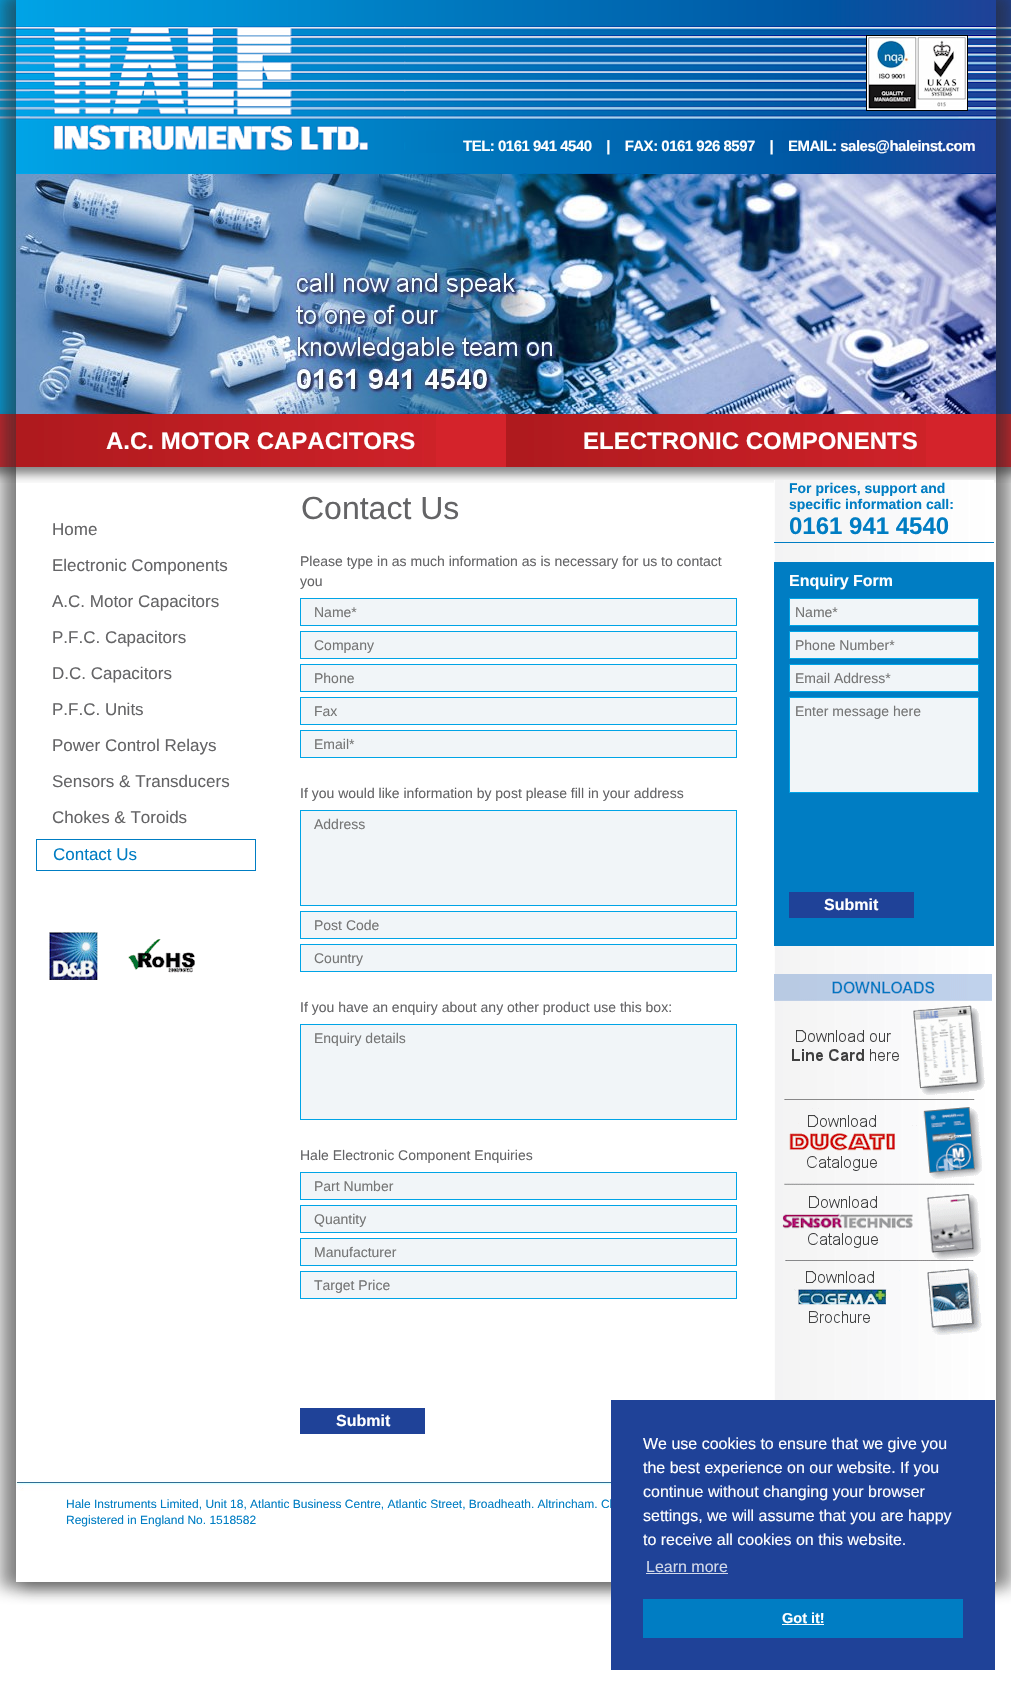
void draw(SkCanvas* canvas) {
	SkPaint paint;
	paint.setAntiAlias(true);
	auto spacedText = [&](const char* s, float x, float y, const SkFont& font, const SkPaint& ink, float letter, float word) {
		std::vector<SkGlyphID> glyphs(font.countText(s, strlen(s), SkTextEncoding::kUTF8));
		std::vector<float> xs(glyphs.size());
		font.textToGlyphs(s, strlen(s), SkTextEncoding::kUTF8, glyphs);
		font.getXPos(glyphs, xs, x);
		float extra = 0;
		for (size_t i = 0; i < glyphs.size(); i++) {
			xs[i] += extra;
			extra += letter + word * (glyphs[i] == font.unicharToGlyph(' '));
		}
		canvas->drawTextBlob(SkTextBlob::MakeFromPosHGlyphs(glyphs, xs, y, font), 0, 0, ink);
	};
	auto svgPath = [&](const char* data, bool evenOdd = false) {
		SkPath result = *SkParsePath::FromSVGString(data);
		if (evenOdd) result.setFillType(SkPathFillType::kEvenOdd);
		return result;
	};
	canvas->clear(0xffffffff);
	canvas->drawImageRect(SkImages::DeferredFromEncodedData(SkData::MakeFromFileName("img1.png")), SkRect::MakeXYWH(0, 0, 1011, 483), SkSamplingOptions());
	canvas->save();
	canvas->clipPath(svgPath("M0 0H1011V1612H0ZM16 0H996V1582H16Z", true), true);
	paint.setColor(0x80282828);
	paint.setMaskFilter(SkMaskFilter::MakeBlur(kNormal_SkBlurStyle, 7.5));
	canvas->drawRect(SkRect::MakeXYWH(0, -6, 992, 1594), paint);
	paint.setMaskFilter(nullptr);
	paint.setMaskFilter(SkMaskFilter::MakeBlur(kNormal_SkBlurStyle, 7.5));
	canvas->drawRect(SkRect::MakeXYWH(20, -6, 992, 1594), paint);
	paint.setMaskFilter(nullptr);
	canvas->restore();
	canvas->drawImageRect(SkImages::DeferredFromEncodedData(SkData::MakeFromFileName("img2.png")), SkRect::MakeXYWH(16, 0, 980, 174), SkSamplingOptions());
	SkFont f1(fontMgr->matchFamilyStyle("Liberation Sans", SkFontStyle::Bold()), 15);
	f1.setSubpixel(true);
	paint.setColor(0xffffffff);
	spacedText("TEL: 0161 941 4540    |    FAX: 0161 926 8597    |    EMAIL: sales@haleinst.com", 463, 151, f1, paint, -0.5, 0);
	canvas->drawImageRect(SkImages::DeferredFromEncodedData(SkData::MakeFromFileName("img3.png")), SkRect::MakeXYWH(16, 174, 980, 240), SkSamplingOptions());
	canvas->drawImageRect(SkImages::DeferredFromEncodedData(SkData::MakeFromFileName("img4.png")), SkRect::MakeXYWH(16, 414, 420, 53), SkSamplingOptions());
	SkFont f2(fontMgr->matchFamilyStyle("Liberation Sans", SkFontStyle::Bold()), 24);
	f2.setSubpixel(true);
	canvas->drawString("A.C. MOTOR CAPACITORS", 106, 449, f2, paint);
	canvas->drawImageRect(SkImages::DeferredFromEncodedData(SkData::MakeFromFileName("img4.png")), SkRect::MakeXYWH(506, 414, 420, 53), SkSamplingOptions());
	canvas->drawString("ELECTRONIC COMPONENTS", 583, 449, f2, paint);
	SkFont f3(fontMgr->matchFamilyStyle("Liberation Sans", SkFontStyle::Normal()), 17);
	f3.setSubpixel(true);
	paint.setColor(0xff646466);
	canvas->drawString("Home", 52, 535, f3, paint);
	canvas->drawString("Electronic Components", 52, 571, f3, paint);
	canvas->drawString("A.C. Motor Capacitors", 52, 607, f3, paint);
	canvas->drawString("P.F.C. Capacitors", 52, 643, f3, paint);
	canvas->drawString("D.C. Capacitors", 52, 679, f3, paint);
	canvas->drawString("P.F.C. Units", 52, 715, f3, paint);
	canvas->drawString("Power Control Relays", 52, 751, f3, paint);
	canvas->drawString("Sensors & Transducers", 52, 787, f3, paint);
	canvas->drawString("Chokes & Toroids", 52, 823, f3, paint);
	paint.setStroke(true);
	paint.setStrokeWidth(1);
	paint.setColor(0xff007dc3);
	canvas->drawRect(SkRect::MakeXYWH(36.5, 839.5, 219, 31), paint);
	paint.setStroke(false);
	canvas->drawString("Contact Us", 53, 860, f3, paint);
	canvas->drawImageRect(SkImages::DeferredFromEncodedData(SkData::MakeFromFileName("img5.png")), SkRect::MakeXYWH(49, 932, 146, 48), SkSamplingOptions());
	SkFont f4(fontMgr->matchFamilyStyle("Liberation Sans", SkFontStyle::Normal()), 32);
	f4.setSubpixel(true);
	paint.setColor(0xff646466);
	canvas->drawString("Contact Us", 301, 519, f4, paint);
	SkFont f5(fontMgr->matchFamilyStyle("Liberation Sans", SkFontStyle::Normal()), 14);
	f5.setSubpixel(true);
	canvas->drawString("Please type in as much information as is necessary for us to contact", 300, 566, f5, paint);
	canvas->drawString("you", 300, 586, f5, paint);
	paint.setColor(0xfff1f5f8);
	canvas->drawRect(SkRect::MakeXYWH(300.5, 598.5, 436, 27), paint);
	paint.setStroke(true);
	paint.setColor(0xff00a4e6);
	canvas->drawRect(SkRect::MakeXYWH(300.5, 598.5, 436, 27), paint);
	paint.setStroke(false);
	paint.setColor(0xff757575);
	canvas->drawString("Name*", 314, 617, f5, paint);
	paint.setColor(0xfff1f5f8);
	canvas->drawRect(SkRect::MakeXYWH(300.5, 631.5, 436, 27), paint);
	paint.setStroke(true);
	paint.setColor(0xff00a4e6);
	canvas->drawRect(SkRect::MakeXYWH(300.5, 631.5, 436, 27), paint);
	paint.setStroke(false);
	paint.setColor(0xff757575);
	canvas->drawString("Company", 314, 650, f5, paint);
	paint.setColor(0xfff1f5f8);
	canvas->drawRect(SkRect::MakeXYWH(300.5, 664.5, 436, 27), paint);
	paint.setStroke(true);
	paint.setColor(0xff00a4e6);
	canvas->drawRect(SkRect::MakeXYWH(300.5, 664.5, 436, 27), paint);
	paint.setStroke(false);
	paint.setColor(0xff757575);
	canvas->drawString("Phone", 314, 683, f5, paint);
	paint.setColor(0xfff1f5f8);
	canvas->drawRect(SkRect::MakeXYWH(300.5, 697.5, 436, 27), paint);
	paint.setStroke(true);
	paint.setColor(0xff00a4e6);
	canvas->drawRect(SkRect::MakeXYWH(300.5, 697.5, 436, 27), paint);
	paint.setStroke(false);
	paint.setColor(0xff757575);
	canvas->drawString("Fax", 314, 716, f5, paint);
	paint.setColor(0xfff1f5f8);
	canvas->drawRect(SkRect::MakeXYWH(300.5, 730.5, 436, 27), paint);
	paint.setStroke(true);
	paint.setColor(0xff00a4e6);
	canvas->drawRect(SkRect::MakeXYWH(300.5, 730.5, 436, 27), paint);
	paint.setStroke(false);
	paint.setColor(0xff757575);
	canvas->drawString("Email*", 314, 749, f5, paint);
	paint.setColor(0xff646466);
	canvas->drawString("If you would like information by post please fill in your address", 300, 798, f5, paint);
	paint.setColor(0xfff1f5f8);
	canvas->drawRect(SkRect::MakeXYWH(300.5, 810.5, 436, 95), paint);
	paint.setStroke(true);
	paint.setColor(0xff00a4e6);
	canvas->drawRect(SkRect::MakeXYWH(300.5, 810.5, 436, 95), paint);
	paint.setStroke(false);
	paint.setColor(0xff757575);
	canvas->drawString("Address", 314, 829, f5, paint);
	paint.setColor(0xfff1f5f8);
	canvas->drawRect(SkRect::MakeXYWH(300.5, 911.5, 436, 27), paint);
	paint.setStroke(true);
	paint.setColor(0xff00a4e6);
	canvas->drawRect(SkRect::MakeXYWH(300.5, 911.5, 436, 27), paint);
	paint.setStroke(false);
	paint.setColor(0xff757575);
	canvas->drawString("Post Code", 314, 930, f5, paint);
	paint.setColor(0xfff1f5f8);
	canvas->drawRect(SkRect::MakeXYWH(300.5, 944.5, 436, 27), paint);
	paint.setStroke(true);
	paint.setColor(0xff00a4e6);
	canvas->drawRect(SkRect::MakeXYWH(300.5, 944.5, 436, 27), paint);
	paint.setStroke(false);
	paint.setColor(0xff757575);
	canvas->drawString("Country", 314, 963, f5, paint);
	paint.setColor(0xff646466);
	canvas->drawString("If you have an enquiry about any other product use this box:", 300, 1012, f5, paint);
	paint.setColor(0xfff1f5f8);
	canvas->drawRect(SkRect::MakeXYWH(300.5, 1024.5, 436, 95), paint);
	paint.setStroke(true);
	paint.setColor(0xff00a4e6);
	canvas->drawRect(SkRect::MakeXYWH(300.5, 1024.5, 436, 95), paint);
	paint.setStroke(false);
	paint.setColor(0xff757575);
	canvas->drawString("Enquiry details", 314, 1043, f5, paint);
	paint.setColor(0xff646466);
	canvas->drawString("Hale Electronic Component Enquiries", 300, 1160, f5, paint);
	paint.setColor(0xfff1f5f8);
	canvas->drawRect(SkRect::MakeXYWH(300.5, 1172.5, 436, 27), paint);
	paint.setStroke(true);
	paint.setColor(0xff00a4e6);
	canvas->drawRect(SkRect::MakeXYWH(300.5, 1172.5, 436, 27), paint);
	paint.setStroke(false);
	paint.setColor(0xff757575);
	canvas->drawString("Part Number", 314, 1191, f5, paint);
	paint.setColor(0xfff1f5f8);
	canvas->drawRect(SkRect::MakeXYWH(300.5, 1205.5, 436, 27), paint);
	paint.setStroke(true);
	paint.setColor(0xff00a4e6);
	canvas->drawRect(SkRect::MakeXYWH(300.5, 1205.5, 436, 27), paint);
	paint.setStroke(false);
	paint.setColor(0xff757575);
	canvas->drawString("Quantity", 314, 1224, f5, paint);
	paint.setColor(0xfff1f5f8);
	canvas->drawRect(SkRect::MakeXYWH(300.5, 1238.5, 436, 27), paint);
	paint.setStroke(true);
	paint.setColor(0xff00a4e6);
	canvas->drawRect(SkRect::MakeXYWH(300.5, 1238.5, 436, 27), paint);
	paint.setStroke(false);
	paint.setColor(0xff757575);
	canvas->drawString("Manufacturer", 314, 1257, f5, paint);
	paint.setColor(0xfff1f5f8);
	canvas->drawRect(SkRect::MakeXYWH(300.5, 1271.5, 436, 27), paint);
	paint.setStroke(true);
	paint.setColor(0xff00a4e6);
	canvas->drawRect(SkRect::MakeXYWH(300.5, 1271.5, 436, 27), paint);
	paint.setStroke(false);
	paint.setColor(0xff757575);
	canvas->drawString("Target Price", 314, 1290, f5, paint);
	paint.setColor(0xff1f4298);
	canvas->drawRect(SkRect::MakeXYWH(300, 1408, 125, 26), paint);
	SkFont f6(fontMgr->matchFamilyStyle("Liberation Sans", SkFontStyle::Bold()), 16);
	f6.setSubpixel(true);
	paint.setColor(0xffffffff);
	canvas->drawString("Submit", 336, 1426, f6, paint);
	canvas->drawImageRect(SkImages::DeferredFromEncodedData(SkData::MakeFromFileName("img6.png")), SkRect::MakeXYWH(774, 480, 220, 920), SkSamplingOptions());
	paint.setColor(0xff007dc3);
	canvas->drawRect(SkRect::MakeXYWH(774, 542, 220, 1), paint);
	SkFont f7(fontMgr->matchFamilyStyle("Liberation Sans", SkFontStyle::Bold()), 14);
	f7.setSubpixel(true);
	canvas->drawString("For prices, support and", 789, 493, f7, paint);
	canvas->drawString("specific information call:", 789, 509, f7, paint);
	canvas->drawString("0161 941 4540", 789, 534, f2, paint);
	canvas->drawRect(SkRect::MakeXYWH(774, 562, 220, 384), paint);
	paint.setColor(0xffffffff);
	canvas->drawString("Enquiry Form", 789, 586, f6, paint);
	paint.setColor(0xfff1f5f8);
	canvas->drawRect(SkRect::MakeXYWH(789.5, 598.5, 189, 27), paint);
	paint.setStroke(true);
	paint.setColor(0xff00a4e6);
	canvas->drawRect(SkRect::MakeXYWH(789.5, 598.5, 189, 27), paint);
	paint.setStroke(false);
	paint.setColor(0xff757575);
	canvas->drawString("Name*", 795, 617, f5, paint);
	paint.setColor(0xfff1f5f8);
	canvas->drawRect(SkRect::MakeXYWH(789.5, 631.5, 189, 27), paint);
	paint.setStroke(true);
	paint.setColor(0xff00a4e6);
	canvas->drawRect(SkRect::MakeXYWH(789.5, 631.5, 189, 27), paint);
	paint.setStroke(false);
	paint.setColor(0xff757575);
	canvas->drawString("Phone Number*", 795, 650, f5, paint);
	paint.setColor(0xfff1f5f8);
	canvas->drawRect(SkRect::MakeXYWH(789.5, 664.5, 189, 27), paint);
	paint.setStroke(true);
	paint.setColor(0xff00a4e6);
	canvas->drawRect(SkRect::MakeXYWH(789.5, 664.5, 189, 27), paint);
	paint.setStroke(false);
	paint.setColor(0xff757575);
	canvas->drawString("Email Address*", 795, 683, f5, paint);
	paint.setColor(0xfff1f5f8);
	canvas->drawRect(SkRect::MakeXYWH(789.5, 697.5, 189, 95), paint);
	paint.setStroke(true);
	paint.setColor(0xff00a4e6);
	canvas->drawRect(SkRect::MakeXYWH(789.5, 697.5, 189, 95), paint);
	paint.setStroke(false);
	paint.setColor(0xff757575);
	canvas->drawString("Enter message here", 795, 716, f5, paint);
	paint.setColor(0xff1f4298);
	canvas->drawRect(SkRect::MakeXYWH(789, 892, 125, 26), paint);
	paint.setColor(0xffffffff);
	canvas->drawString("Submit", 824, 910, f6, paint);
	canvas->drawImageRect(SkImages::DeferredFromEncodedData(SkData::MakeFromFileName("img7.png")), SkRect::MakeXYWH(774, 974, 218, 27), SkSamplingOptions());
	canvas->drawImageRect(SkImages::DeferredFromEncodedData(SkData::MakeFromFileName("img8.png")), SkRect::MakeXYWH(784, 1005, 201, 95), SkSamplingOptions());
	canvas->drawImageRect(SkImages::DeferredFromEncodedData(SkData::MakeFromFileName("img9.png")), SkRect::MakeXYWH(784, 1107, 198, 78), SkSamplingOptions());
	canvas->drawImageRect(SkImages::DeferredFromEncodedData(SkData::MakeFromFileName("img10.png")), SkRect::MakeXYWH(782, 1194, 199, 67), SkSamplingOptions());
	canvas->drawImageRect(SkImages::DeferredFromEncodedData(SkData::MakeFromFileName("img11.png")), SkRect::MakeXYWH(794, 1268, 188, 67), SkSamplingOptions());
	canvas->drawImageRect(SkImages::DeferredFromEncodedData(SkData::MakeFromFileName("img12.png")), SkRect::MakeXYWH(16, 1482, 980, 9), SkSamplingOptions());
	SkFont f8(fontMgr->matchFamilyStyle("Liberation Sans", SkFontStyle::Normal()), 12);
	f8.setSubpixel(true);
	paint.setColor(0xff007dc3);
	canvas->drawString("Hale Instruments Limited, Unit 18, Atlantic Business Centre, Atlantic Street, Broadheath. Altrincham. Ch", 66, 1508, f8, paint);
	canvas->drawString("Registered in England No. 1518582", 66, 1524, f8, paint);
	paint.setColor(0xff1f4298);
	canvas->drawRect(SkRect::MakeXYWH(611, 1400, 384, 270), paint);
	SkFont f9(fontMgr->matchFamilyStyle("Liberation Sans", SkFontStyle::Normal()), 16);
	f9.setSubpixel(true);
	paint.setColor(0xffffffff);
	canvas->drawString("We use cookies to ensure that we give you", 643, 1449, f9, paint);
	canvas->drawString("the best experience on our website. If you", 643, 1473, f9, paint);
	canvas->drawString("continue without changing your browser", 643, 1497, f9, paint);
	canvas->drawString("settings, we will assume that you are happy", 643, 1521, f9, paint);
	canvas->drawString("to receive all cookies on this website.", 643, 1545, f9, paint);
	paint.setColor(0xffd2d9ea);
	canvas->drawString("Learn more", 646, 1572, f9, paint);
	canvas->drawRect(SkRect::MakeXYWH(646, 1573, 82, 1), paint);
	paint.setColor(0xff007dc3);
	canvas->drawRect(SkRect::MakeXYWH(643, 1599, 320, 39), paint);
	SkFont f10(fontMgr->matchFamilyStyle("Liberation Sans", SkFontStyle::Bold()), 14.5);
	f10.setSubpixel(true);
	paint.setColor(0xffffffff);
	canvas->drawString("Got it!", 782, 1623, f10, paint);
	canvas->drawRect(SkRect::MakeXYWH(782, 1624, 42, 1), paint);
}
